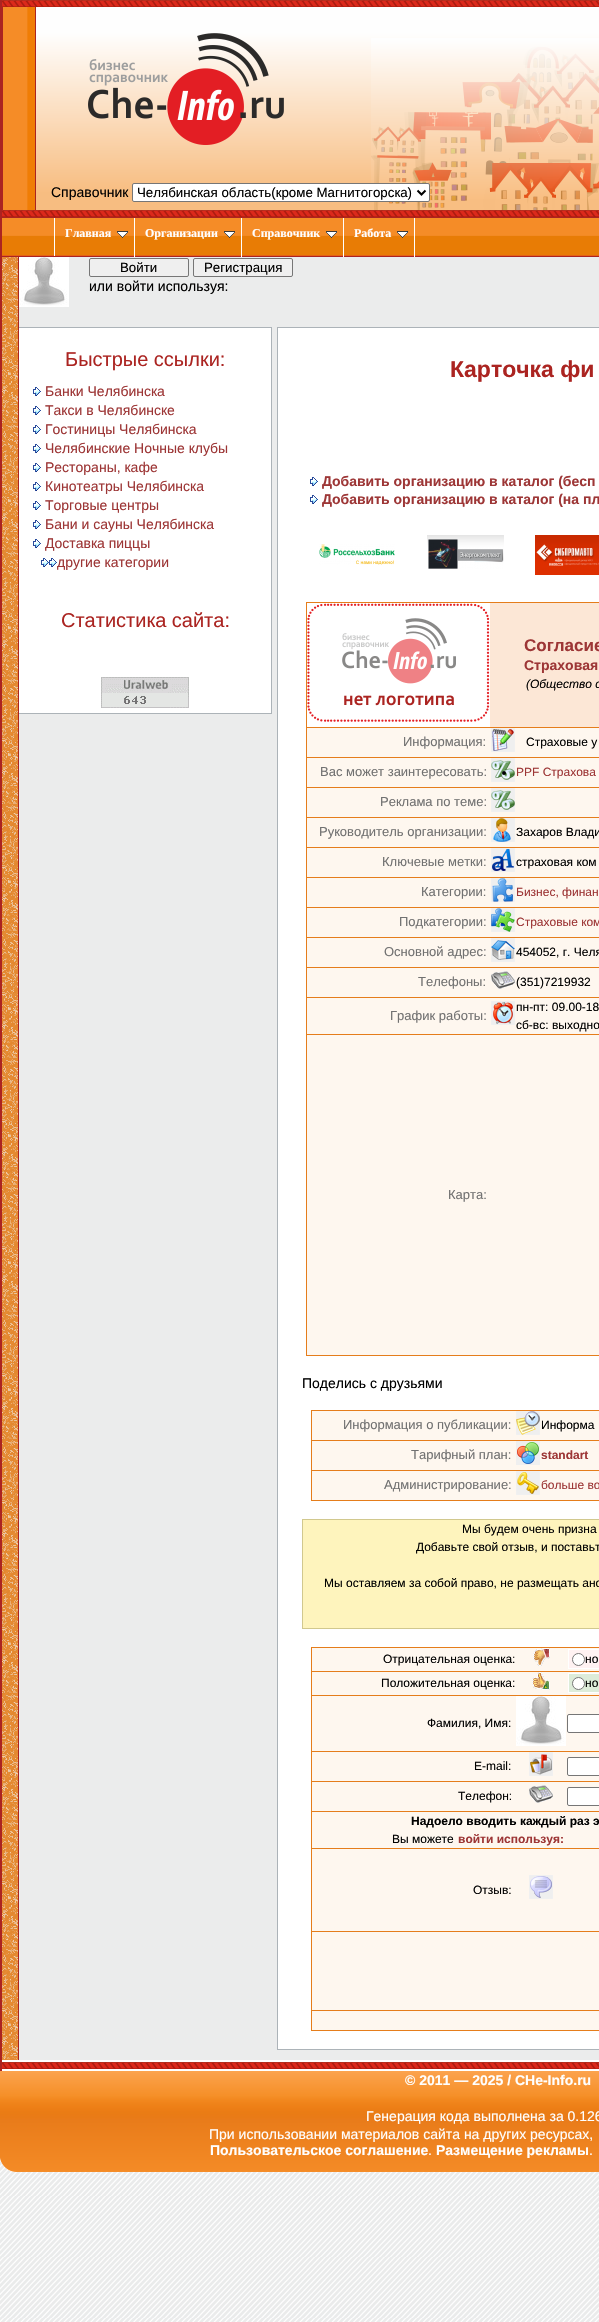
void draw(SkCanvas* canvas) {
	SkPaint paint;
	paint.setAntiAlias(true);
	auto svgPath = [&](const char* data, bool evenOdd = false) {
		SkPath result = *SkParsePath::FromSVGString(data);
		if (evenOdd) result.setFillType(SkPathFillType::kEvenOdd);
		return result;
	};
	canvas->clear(0xffffffff);
	canvas->drawImageRect(SkImages::DeferredFromEncodedData(SkData::MakeFromFileName("img1.png")), SkRect::MakeXYWH(0, 2161, 599, 161), SkSamplingOptions());
	paint.setColor(0xffab2421);
	canvas->drawRect(SkRect::MakeXYWH(0, 0, 2, 2071), paint);
	canvas->drawImageRect(SkImages::DeferredFromEncodedData(SkData::MakeFromFileName("img2.png")), SkRect::MakeXYWH(36, 7, 563, 203), SkSamplingOptions());
	canvas->drawImageRect(SkImages::DeferredFromEncodedData(SkData::MakeFromFileName("img3.png")), SkRect::MakeXYWH(2, 0, 597, 7), SkSamplingOptions());
	canvas->drawImageRect(SkImages::DeferredFromEncodedData(SkData::MakeFromFileName("img4.png")), SkRect::MakeXYWH(3, 7, 32, 203), SkSamplingOptions());
	canvas->drawRect(SkRect::MakeXYWH(35, 7, 1, 203), paint);
	canvas->drawRect(SkRect::MakeXYWH(2, 7, 1, 203), paint);
	canvas->drawImageRect(SkImages::DeferredFromEncodedData(SkData::MakeFromFileName("img5.png")), SkRect::MakeXYWH(88, 33, 196, 112), SkSamplingOptions());
	SkFont f1(fontMgr->matchFamilyStyle("Liberation Sans", SkFontStyle::Normal()), 14);
	f1.setSubpixel(true);
	paint.setColor(0xff000000);
	canvas->drawString("Справочник", 51, 197, f1, paint);
	canvas->drawImageRect(SkImages::DeferredFromEncodedData(SkData::MakeFromFileName("img6.png")), SkRect::MakeXYWH(371, 38, 228, 172), SkSamplingOptions());
	paint.setColor(0xffffffff);
	canvas->drawRoundRect(SkRect::MakeXYWH(132.5, 183.5, 297, 18), 1.5, 1.5, paint);
	paint.setStroke(true);
	paint.setStrokeWidth(1);
	paint.setColor(0xff767676);
	canvas->drawRoundRect(SkRect::MakeXYWH(132.5, 183.5, 297, 18), 1.5, 1.5, paint);
	paint.setStrokeWidth(2);
	paint.setColor(0xff000000);
	canvas->drawPath(svgPath("M417.5 190.5L421.5 194.5L425.5 190.5"), paint);
	SkFont f2(fontMgr->matchFamilyStyle("Liberation Sans", SkFontStyle::Normal()), 13.3);
	f2.setSubpixel(true);
	paint.setStroke(false);
	canvas->drawString("Челябинская область(кроме Магнитогорска)", 137, 197, f2, paint);
	canvas->drawImageRect(SkImages::DeferredFromEncodedData(SkData::MakeFromFileName("img3.png")), SkRect::MakeXYWH(2, 210, 597, 7), SkSamplingOptions());
	paint.setColor(0xffab2421);
	canvas->drawRect(SkRect::MakeXYWH(2, 217, 597, 1), paint);
	canvas->drawRect(SkRect::MakeXYWH(2, 256, 597, 1), paint);
	canvas->drawImageRect(SkImages::DeferredFromEncodedData(SkData::MakeFromFileName("img7.png")), SkRect::MakeXYWH(2, 218, 597, 38), SkSamplingOptions());
	paint.setColor(0xffffffff);
	canvas->drawRect(SkRect::MakeXYWH(54, 218, 1, 38), paint);
	canvas->drawRect(SkRect::MakeXYWH(134, 218, 1, 39), paint);
	SkFont f3(fontMgr->matchFamilyStyle("Liberation Serif", SkFontStyle::Bold()), 12);
	f3.setSubpixel(true);
	canvas->drawString("Главная", 65, 237, f3, paint);
	canvas->drawImageRect(SkImages::DeferredFromEncodedData(SkData::MakeFromFileName("img8.png")), SkRect::MakeXYWH(117, 231, 11, 7), SkSamplingOptions());
	canvas->drawRect(SkRect::MakeXYWH(241, 218, 1, 39), paint);
	canvas->drawString("Организации", 145, 237, f3, paint);
	canvas->drawImageRect(SkImages::DeferredFromEncodedData(SkData::MakeFromFileName("img8.png")), SkRect::MakeXYWH(224, 231, 11, 7), SkSamplingOptions());
	canvas->drawRect(SkRect::MakeXYWH(343, 218, 1, 39), paint);
	canvas->drawString("Справочник", 252, 237, f3, paint);
	canvas->drawImageRect(SkImages::DeferredFromEncodedData(SkData::MakeFromFileName("img8.png")), SkRect::MakeXYWH(326, 231, 11, 7), SkSamplingOptions());
	canvas->drawRect(SkRect::MakeXYWH(414, 218, 1, 39), paint);
	canvas->drawString("Работа", 354, 237, f3, paint);
	canvas->drawImageRect(SkImages::DeferredFromEncodedData(SkData::MakeFromFileName("img8.png")), SkRect::MakeXYWH(397, 231, 11, 7), SkSamplingOptions());
	canvas->drawImageRect(SkImages::DeferredFromEncodedData(SkData::MakeFromFileName("img9.png")), SkRect::MakeXYWH(2, 257, 16, 1803), SkSamplingOptions());
	paint.setColor(0xffebecec);
	canvas->drawRect(SkRect::MakeXYWH(19, 257, 580, 1803), paint);
	paint.setColor(0xffab2421);
	canvas->drawRect(SkRect::MakeXYWH(18, 257, 1, 1803), paint);
	canvas->drawImageRect(SkImages::DeferredFromEncodedData(SkData::MakeFromFileName("img10.png")), SkRect::MakeXYWH(19, 257, 50, 50), SkSamplingOptions());
	paint.setColor(0xffefefef);
	canvas->drawRoundRect(SkRect::MakeXYWH(89.5, 258.5, 99, 18), 1.5, 1.5, paint);
	paint.setStroke(true);
	paint.setStrokeWidth(1);
	paint.setColor(0xff767676);
	canvas->drawRoundRect(SkRect::MakeXYWH(89.5, 258.5, 99, 18), 1.5, 1.5, paint);
	paint.setStroke(false);
	paint.setColor(0xff000000);
	canvas->drawString("Войти", 120, 272, f2, paint);
	paint.setColor(0xffefefef);
	canvas->drawRoundRect(SkRect::MakeXYWH(193.5, 258.5, 99, 18), 1.5, 1.5, paint);
	paint.setStroke(true);
	paint.setColor(0xff767676);
	canvas->drawRoundRect(SkRect::MakeXYWH(193.5, 258.5, 99, 18), 1.5, 1.5, paint);
	paint.setStroke(false);
	paint.setColor(0xff000000);
	canvas->drawString("Регистрация", 204, 272, f2, paint);
	canvas->drawString("или войти используя:", 89, 291, f1, paint);
	paint.setColor(0xffffffff);
	canvas->drawRect(SkRect::MakeXYWH(19, 328, 252, 385), paint);
	paint.setColor(0xffacb3b8);
	canvas->drawRect(SkRect::MakeXYWH(19, 327, 253, 1), paint);
	canvas->drawRect(SkRect::MakeXYWH(271, 327, 1, 387), paint);
	canvas->drawRect(SkRect::MakeXYWH(19, 713, 253, 1), paint);
	SkFont f4(fontMgr->matchFamilyStyle("Liberation Sans", SkFontStyle::Normal()), 20);
	f4.setSubpixel(true);
	paint.setColor(0xffab2421);
	canvas->drawString("Быстрые ссылки:", 65, 366, f4, paint);
	canvas->drawImageRect(SkImages::DeferredFromEncodedData(SkData::MakeFromFileName("img11.png")), SkRect::MakeXYWH(33, 387, 8, 9), SkSamplingOptions());
	paint.setColor(0xff9d3636);
	canvas->drawString("Банки Челябинска", 45, 396, f1, paint);
	canvas->drawImageRect(SkImages::DeferredFromEncodedData(SkData::MakeFromFileName("img11.png")), SkRect::MakeXYWH(33, 406, 8, 9), SkSamplingOptions());
	canvas->drawString("Такси в Челябинске", 45, 415, f1, paint);
	canvas->drawImageRect(SkImages::DeferredFromEncodedData(SkData::MakeFromFileName("img11.png")), SkRect::MakeXYWH(33, 425, 8, 9), SkSamplingOptions());
	canvas->drawString("Гостиницы Челябинска", 45, 434, f1, paint);
	canvas->drawImageRect(SkImages::DeferredFromEncodedData(SkData::MakeFromFileName("img11.png")), SkRect::MakeXYWH(33, 444, 8, 9), SkSamplingOptions());
	canvas->drawString("Челябинские Ночные клубы", 45, 453, f1, paint);
	canvas->drawImageRect(SkImages::DeferredFromEncodedData(SkData::MakeFromFileName("img11.png")), SkRect::MakeXYWH(33, 463, 8, 9), SkSamplingOptions());
	canvas->drawString("Рестораны, кафе", 45, 472, f1, paint);
	canvas->drawImageRect(SkImages::DeferredFromEncodedData(SkData::MakeFromFileName("img11.png")), SkRect::MakeXYWH(33, 482, 8, 9), SkSamplingOptions());
	canvas->drawString("Кинотеатры Челябинска", 45, 491, f1, paint);
	canvas->drawImageRect(SkImages::DeferredFromEncodedData(SkData::MakeFromFileName("img11.png")), SkRect::MakeXYWH(33, 501, 8, 9), SkSamplingOptions());
	canvas->drawString("Торговые центры", 45, 510, f1, paint);
	canvas->drawImageRect(SkImages::DeferredFromEncodedData(SkData::MakeFromFileName("img11.png")), SkRect::MakeXYWH(33, 520, 8, 9), SkSamplingOptions());
	canvas->drawString("Бани и сауны Челябинска", 45, 529, f1, paint);
	canvas->drawImageRect(SkImages::DeferredFromEncodedData(SkData::MakeFromFileName("img11.png")), SkRect::MakeXYWH(33, 539, 8, 9), SkSamplingOptions());
	canvas->drawString("Доставка пиццы", 45, 548, f1, paint);
	canvas->drawImageRect(SkImages::DeferredFromEncodedData(SkData::MakeFromFileName("img11.png")), SkRect::MakeXYWH(41, 558, 8, 9), SkSamplingOptions());
	canvas->drawImageRect(SkImages::DeferredFromEncodedData(SkData::MakeFromFileName("img11.png")), SkRect::MakeXYWH(49, 558, 8, 9), SkSamplingOptions());
	canvas->drawString("другие категории", 57, 567, f1, paint);
	paint.setColor(0xffab2421);
	canvas->drawString("Статистика сайта:", 61, 627, f4, paint);
	canvas->drawImageRect(SkImages::DeferredFromEncodedData(SkData::MakeFromFileName("img12.png")), SkRect::MakeXYWH(101, 677, 88, 31), SkSamplingOptions());
	paint.setColor(0xffffffff);
	canvas->drawRect(SkRect::MakeXYWH(278, 328, 321, 1721), paint);
	paint.setColor(0xffacb3b8);
	canvas->drawRect(SkRect::MakeXYWH(277, 327, 322, 1), paint);
	canvas->drawRect(SkRect::MakeXYWH(277, 2049, 322, 1), paint);
	canvas->drawRect(SkRect::MakeXYWH(277, 327, 1, 1723), paint);
	SkFont f5(fontMgr->matchFamilyStyle("Liberation Sans", SkFontStyle::Bold()), 23);
	f5.setSubpixel(true);
	paint.setColor(0xffab2421);
	canvas->drawString("Карточка фи", 450, 377, f5, paint);
	canvas->drawImageRect(SkImages::DeferredFromEncodedData(SkData::MakeFromFileName("img11.png")), SkRect::MakeXYWH(310, 477, 8, 9), SkSamplingOptions());
	SkFont f6(fontMgr->matchFamilyStyle("Liberation Sans", SkFontStyle::Bold()), 14);
	f6.setSubpixel(true);
	paint.setColor(0xff9d3636);
	canvas->drawString("Добавить организацию в каталог (бесп", 322, 486, f6, paint);
	canvas->drawImageRect(SkImages::DeferredFromEncodedData(SkData::MakeFromFileName("img11.png")), SkRect::MakeXYWH(310, 495, 8, 9), SkSamplingOptions());
	canvas->drawString("Добавить организацию в каталог (на пл", 322, 504, f6, paint);
	canvas->drawImageRect(SkImages::DeferredFromEncodedData(SkData::MakeFromFileName("img13.png")), SkRect::MakeXYWH(319, 544, 76, 21), SkSamplingOptions());
	canvas->drawImageRect(SkImages::DeferredFromEncodedData(SkData::MakeFromFileName("img14.png")), SkRect::MakeXYWH(427, 535, 77, 34), SkSamplingOptions());
	canvas->drawImageRect(SkImages::DeferredFromEncodedData(SkData::MakeFromFileName("img15.png")), SkRect::MakeXYWH(535, 535, 64, 40), SkSamplingOptions());
	paint.setColor(0xffe57d1b);
	canvas->drawRect(SkRect::MakeXYWH(306, 602, 293, 754), paint);
	paint.setColor(0xfffce7d6);
	canvas->drawRect(SkRect::MakeXYWH(490, 603, 109, 124), paint);
	paint.setColor(0xffffffff);
	canvas->drawRect(SkRect::MakeXYWH(307, 603, 183, 124), paint);
	canvas->drawImageRect(SkImages::DeferredFromEncodedData(SkData::MakeFromFileName("img16.png")), SkRect::MakeXYWH(307, 603, 183, 119), SkSamplingOptions());
	SkFont f7(fontMgr->matchFamilyStyle("Liberation Sans", SkFontStyle::Bold()), 17);
	f7.setSubpixel(true);
	paint.setColor(0xff9d3636);
	canvas->drawString("Согласие", 524, 651, f7, paint);
	canvas->drawString("Страховая", 524, 670, f6, paint);
	SkFont f8(fontMgr->matchFamilyStyle("Liberation Sans", SkFontStyle::Italic()), 12);
	f8.setSubpixel(true);
	paint.setColor(0xff000000);
	canvas->drawString("(Общество с", 526, 688, f8, paint);
	paint.setColor(0xfffef7ef);
	canvas->drawRect(SkRect::MakeXYWH(307, 728, 292, 29), paint);
	SkFont f9(fontMgr->matchFamilyStyle("Liberation Sans", SkFontStyle::Normal()), 13);
	f9.setSubpixel(true);
	paint.setColor(0xff717171);
	canvas->drawString("Информация:", 403, 746, f9, paint);
	canvas->drawImageRect(SkImages::DeferredFromEncodedData(SkData::MakeFromFileName("img17.png")), SkRect::MakeXYWH(491, 728, 24, 24), SkSamplingOptions());
	SkFont f10(fontMgr->matchFamilyStyle("Liberation Sans", SkFontStyle::Normal()), 12);
	f10.setSubpixel(true);
	paint.setColor(0xff000000);
	canvas->drawString("Страховые у", 526, 746, f10, paint);
	paint.setColor(0xfffef7ef);
	canvas->drawRect(SkRect::MakeXYWH(307, 758, 292, 29), paint);
	paint.setColor(0xff717171);
	canvas->drawString("Вас может заинтересовать:", 320, 776, f9, paint);
	canvas->drawImageRect(SkImages::DeferredFromEncodedData(SkData::MakeFromFileName("img18.png")), SkRect::MakeXYWH(491, 758, 24, 24), SkSamplingOptions());
	paint.setColor(0xff000000);
	canvas->drawCircle(504, 773, 2, paint);
	paint.setColor(0xff9d3636);
	canvas->drawString("PPF Страхова", 516, 776, f10, paint);
	paint.setColor(0xfffef7ef);
	canvas->drawRect(SkRect::MakeXYWH(307, 788, 292, 29), paint);
	paint.setColor(0xff717171);
	canvas->drawString("Реклама по теме:", 380, 806, f9, paint);
	canvas->drawImageRect(SkImages::DeferredFromEncodedData(SkData::MakeFromFileName("img18.png")), SkRect::MakeXYWH(491, 788, 24, 24), SkSamplingOptions());
	paint.setColor(0xfffef7ef);
	canvas->drawRect(SkRect::MakeXYWH(307, 818, 292, 29), paint);
	paint.setColor(0xff717171);
	canvas->drawString("Руководитель организации:", 319, 836, f9, paint);
	canvas->drawImageRect(SkImages::DeferredFromEncodedData(SkData::MakeFromFileName("img19.png")), SkRect::MakeXYWH(491, 818, 24, 24), SkSamplingOptions());
	paint.setColor(0xff000000);
	canvas->drawString("Захаров Влади", 516, 836, f10, paint);
	paint.setColor(0xfffef7ef);
	canvas->drawRect(SkRect::MakeXYWH(307, 848, 292, 29), paint);
	paint.setColor(0xff717171);
	canvas->drawString("Ключевые метки:", 382, 866, f9, paint);
	canvas->drawImageRect(SkImages::DeferredFromEncodedData(SkData::MakeFromFileName("img20.png")), SkRect::MakeXYWH(491, 848, 24, 24), SkSamplingOptions());
	paint.setColor(0xff000000);
	canvas->drawString("страховая ком", 516, 866, f10, paint);
	paint.setColor(0xfffef7ef);
	canvas->drawRect(SkRect::MakeXYWH(307, 878, 292, 29), paint);
	paint.setColor(0xff717171);
	canvas->drawString("Категории:", 421, 896, f9, paint);
	canvas->drawImageRect(SkImages::DeferredFromEncodedData(SkData::MakeFromFileName("img21.png")), SkRect::MakeXYWH(491, 878, 24, 24), SkSamplingOptions());
	paint.setColor(0xff9d3636);
	canvas->drawString("Бизнес, финан", 516, 896, f10, paint);
	paint.setColor(0xfffef7ef);
	canvas->drawRect(SkRect::MakeXYWH(307, 908, 292, 29), paint);
	paint.setColor(0xff717171);
	canvas->drawString("Подкатегории:", 399, 926, f9, paint);
	canvas->drawImageRect(SkImages::DeferredFromEncodedData(SkData::MakeFromFileName("img22.png")), SkRect::MakeXYWH(491, 908, 24, 24), SkSamplingOptions());
	paint.setColor(0xff9d3636);
	canvas->drawString("Страховые ком", 516, 926, f10, paint);
	paint.setColor(0xfffef7ef);
	canvas->drawRect(SkRect::MakeXYWH(307, 938, 292, 29), paint);
	paint.setColor(0xff717171);
	canvas->drawString("Основной адрес:", 384, 956, f9, paint);
	canvas->drawImageRect(SkImages::DeferredFromEncodedData(SkData::MakeFromFileName("img23.png")), SkRect::MakeXYWH(491, 938, 24, 24), SkSamplingOptions());
	paint.setColor(0xff000000);
	canvas->drawString("454052, г. Челя", 516, 956, f10, paint);
	paint.setColor(0xfffef7ef);
	canvas->drawRect(SkRect::MakeXYWH(307, 968, 292, 29), paint);
	paint.setColor(0xff717171);
	canvas->drawString("Телефоны:", 418, 986, f9, paint);
	canvas->drawImageRect(SkImages::DeferredFromEncodedData(SkData::MakeFromFileName("img24.png")), SkRect::MakeXYWH(491, 971, 24, 18), SkSamplingOptions());
	paint.setColor(0xff000000);
	canvas->drawString("(351)7219932", 516, 986, f10, paint);
	paint.setColor(0xfffef7ef);
	canvas->drawRect(SkRect::MakeXYWH(307, 998, 292, 36), paint);
	paint.setColor(0xff717171);
	canvas->drawString("График работы:", 390, 1020, f9, paint);
	canvas->drawImageRect(SkImages::DeferredFromEncodedData(SkData::MakeFromFileName("img25.png")), SkRect::MakeXYWH(491, 1001, 24, 24), SkSamplingOptions());
	paint.setColor(0xff000000);
	canvas->drawString("пн-пт: 09.00-18", 516, 1011, f10, paint);
	canvas->drawString("сб-вс: выходно", 516, 1029, f10, paint);
	paint.setColor(0xfffef7ef);
	canvas->drawRect(SkRect::MakeXYWH(307, 1035, 292, 320), paint);
	paint.setColor(0xff717171);
	canvas->drawString("Карта:", 448, 1199, f9, paint);
	paint.setColor(0xff000000);
	canvas->drawString("Поделись с друзьями", 302, 1388, f1, paint);
	paint.setColor(0xffe57d1b);
	canvas->drawRect(SkRect::MakeXYWH(311, 1410, 288, 91), paint);
	paint.setColor(0xfffef7ef);
	canvas->drawRect(SkRect::MakeXYWH(312, 1411, 287, 29), paint);
	paint.setColor(0xff717171);
	canvas->drawString("Информация о публикации:", 343, 1429, f9, paint);
	canvas->drawImageRect(SkImages::DeferredFromEncodedData(SkData::MakeFromFileName("img26.png")), SkRect::MakeXYWH(516, 1411, 24, 24), SkSamplingOptions());
	paint.setColor(0xff000000);
	canvas->drawString("Информа", 541, 1429, f10, paint);
	paint.setColor(0xfffef7ef);
	canvas->drawRect(SkRect::MakeXYWH(312, 1441, 287, 29), paint);
	paint.setColor(0xff717171);
	canvas->drawString("Тарифный план:", 411, 1459, f9, paint);
	canvas->drawImageRect(SkImages::DeferredFromEncodedData(SkData::MakeFromFileName("img27.png")), SkRect::MakeXYWH(516, 1441, 24, 24), SkSamplingOptions());
	SkFont f11(fontMgr->matchFamilyStyle("Liberation Sans", SkFontStyle::Bold()), 12);
	f11.setSubpixel(true);
	paint.setColor(0xff9d3636);
	canvas->drawString("standart", 541, 1459, f11, paint);
	paint.setColor(0xfffef7ef);
	canvas->drawRect(SkRect::MakeXYWH(312, 1471, 287, 29), paint);
	paint.setColor(0xff717171);
	canvas->drawString("Администрирование:", 384, 1489, f9, paint);
	canvas->drawImageRect(SkImages::DeferredFromEncodedData(SkData::MakeFromFileName("img28.png")), SkRect::MakeXYWH(516, 1471, 24, 24), SkSamplingOptions());
	paint.setColor(0xff9d3636);
	canvas->drawString("больше во", 541, 1489, f10, paint);
	paint.setColor(0xffd1c88e);
	canvas->drawRect(SkRect::MakeXYWH(302, 1519, 297, 110), paint);
	paint.setColor(0xfffef4bd);
	canvas->drawRect(SkRect::MakeXYWH(303, 1520, 296, 108), paint);
	paint.setColor(0xff000000);
	canvas->drawString("Мы будем очень призна", 462, 1533, f10, paint);
	canvas->drawString("Добавьте свой отзыв, и поставьт", 416, 1551, f10, paint);
	canvas->drawString("Мы оставляем за собой право, не размещать ано", 324, 1587, f10, paint);
	paint.setColor(0xffe57d1b);
	canvas->drawRect(SkRect::MakeXYWH(311, 1647, 288, 384), paint);
	paint.setColor(0xfffef7ef);
	canvas->drawRect(SkRect::MakeXYWH(312, 1648, 287, 23), paint);
	paint.setColor(0xff000000);
	canvas->drawString("Отрицательная оценка:", 383, 1663, f10, paint);
	canvas->drawImageRect(SkImages::DeferredFromEncodedData(SkData::MakeFromFileName("img29.png")), SkRect::MakeXYWH(533, 1648, 17, 18), SkSamplingOptions());
	paint.setColor(0xfffff2f2);
	canvas->drawRect(SkRect::MakeXYWH(568.5, 1649.5, 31, 19), paint);
	paint.setStroke(true);
	paint.setColor(0xffffffff);
	canvas->drawRect(SkRect::MakeXYWH(568.5, 1649.5, 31, 19), paint);
	paint.setStroke(false);
	canvas->drawCircle(578.5, 1659.5, 6, paint);
	paint.setStroke(true);
	paint.setColor(0xff767676);
	canvas->drawCircle(578.5, 1659.5, 6, paint);
	paint.setStroke(false);
	paint.setColor(0xff000000);
	canvas->drawString("но", 585, 1663, f10, paint);
	paint.setColor(0xfffef7ef);
	canvas->drawRect(SkRect::MakeXYWH(312, 1672, 287, 23), paint);
	paint.setColor(0xff000000);
	canvas->drawString("Положительная оценка:", 381, 1687, f10, paint);
	canvas->drawImageRect(SkImages::DeferredFromEncodedData(SkData::MakeFromFileName("img30.png")), SkRect::MakeXYWH(532, 1672, 18, 18), SkSamplingOptions());
	paint.setColor(0xffddecd9);
	canvas->drawRect(SkRect::MakeXYWH(568.5, 1673.5, 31, 19), paint);
	paint.setStroke(true);
	paint.setColor(0xffffffff);
	canvas->drawRect(SkRect::MakeXYWH(568.5, 1673.5, 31, 19), paint);
	paint.setStroke(false);
	canvas->drawCircle(578.5, 1683.5, 6, paint);
	paint.setStroke(true);
	paint.setColor(0xff767676);
	canvas->drawCircle(578.5, 1683.5, 6, paint);
	paint.setStroke(false);
	paint.setColor(0xff000000);
	canvas->drawString("но", 585, 1687, f10, paint);
	paint.setColor(0xfffef7ef);
	canvas->drawRect(SkRect::MakeXYWH(312, 1696, 287, 55), paint);
	paint.setColor(0xff000000);
	canvas->drawString("Фамилия, Имя:", 427, 1727, f10, paint);
	canvas->drawImageRect(SkImages::DeferredFromEncodedData(SkData::MakeFromFileName("img10.png")), SkRect::MakeXYWH(516, 1696, 50, 50), SkSamplingOptions());
	paint.setColor(0xffffffff);
	canvas->drawRoundRect(SkRect::MakeXYWH(567.5, 1714.5, 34, 18), 1.5, 1.5, paint);
	paint.setStroke(true);
	paint.setColor(0xff767676);
	canvas->drawRoundRect(SkRect::MakeXYWH(567.5, 1714.5, 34, 18), 1.5, 1.5, paint);
	paint.setStroke(false);
	paint.setColor(0xfffef7ef);
	canvas->drawRect(SkRect::MakeXYWH(312, 1752, 287, 29), paint);
	paint.setColor(0xff000000);
	canvas->drawString("E-mail:", 474, 1770, f10, paint);
	canvas->drawImageRect(SkImages::DeferredFromEncodedData(SkData::MakeFromFileName("img31.png")), SkRect::MakeXYWH(529, 1752, 24, 24), SkSamplingOptions());
	paint.setColor(0xffffffff);
	canvas->drawRoundRect(SkRect::MakeXYWH(567.5, 1757.5, 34, 18), 1.5, 1.5, paint);
	paint.setStroke(true);
	paint.setColor(0xff767676);
	canvas->drawRoundRect(SkRect::MakeXYWH(567.5, 1757.5, 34, 18), 1.5, 1.5, paint);
	paint.setStroke(false);
	paint.setColor(0xfffef7ef);
	canvas->drawRect(SkRect::MakeXYWH(312, 1782, 287, 29), paint);
	paint.setColor(0xff000000);
	canvas->drawString("Телефон:", 458, 1800, f10, paint);
	canvas->drawImageRect(SkImages::DeferredFromEncodedData(SkData::MakeFromFileName("img24.png")), SkRect::MakeXYWH(529, 1785, 24, 18), SkSamplingOptions());
	paint.setColor(0xffffffff);
	canvas->drawRoundRect(SkRect::MakeXYWH(567.5, 1787.5, 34, 18), 1.5, 1.5, paint);
	paint.setStroke(true);
	paint.setColor(0xff767676);
	canvas->drawRoundRect(SkRect::MakeXYWH(567.5, 1787.5, 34, 18), 1.5, 1.5, paint);
	paint.setStroke(false);
	paint.setColor(0xfffef7ef);
	canvas->drawRect(SkRect::MakeXYWH(312, 1812, 287, 36), paint);
	paint.setColor(0xff000000);
	canvas->drawString("Надоело вводить каждый раз э", 411, 1825, f11, paint);
	canvas->drawString("Вы можете", 392, 1843, f10, paint);
	paint.setColor(0xff9d3636);
	canvas->drawString("войти используя:", 458, 1843, f11, paint);
	paint.setColor(0xfffef7ef);
	canvas->drawRect(SkRect::MakeXYWH(312, 1849, 287, 82), paint);
	paint.setColor(0xff000000);
	canvas->drawString("Отзыв:", 473, 1894, f10, paint);
	canvas->drawImageRect(SkImages::DeferredFromEncodedData(SkData::MakeFromFileName("img32.png")), SkRect::MakeXYWH(529, 1875, 24, 24), SkSamplingOptions());
	paint.setColor(0xfffef7ef);
	canvas->drawRect(SkRect::MakeXYWH(312, 1932, 287, 78), paint);
	canvas->drawRect(SkRect::MakeXYWH(312, 2011, 287, 19), paint);
	canvas->drawImageRect(SkImages::DeferredFromEncodedData(SkData::MakeFromFileName("img3.png")), SkRect::MakeXYWH(2, 2062, 597, 7), SkSamplingOptions());
	canvas->drawImageRect(SkImages::DeferredFromEncodedData(SkData::MakeFromFileName("img33.png")), SkRect::MakeXYWH(0, 2071, 18, 101), SkSamplingOptions());
	canvas->drawImageRect(SkImages::DeferredFromEncodedData(SkData::MakeFromFileName("img34.png")), SkRect::MakeXYWH(18, 2071, 581, 101), SkSamplingOptions());
	paint.setColor(0xffffffff);
	canvas->drawString("© 2011 — 2025 / CHe-Info.ru", 405, 2085, f6, paint);
	canvas->drawString("Генерация кода выполнена за 0.126", 366, 2121, f1, paint);
	canvas->drawString("При использовании материалов сайта на других ресурсах,", 209, 2139, f1, paint);
	canvas->drawString("Пользовательское соглашение", 210, 2155, f6, paint);
	canvas->drawString(".", 428, 2155, f1, paint);
	canvas->drawString("Размещение рекламы", 436, 2155, f6, paint);
	canvas->drawString(".", 589, 2155, f1, paint);
}
